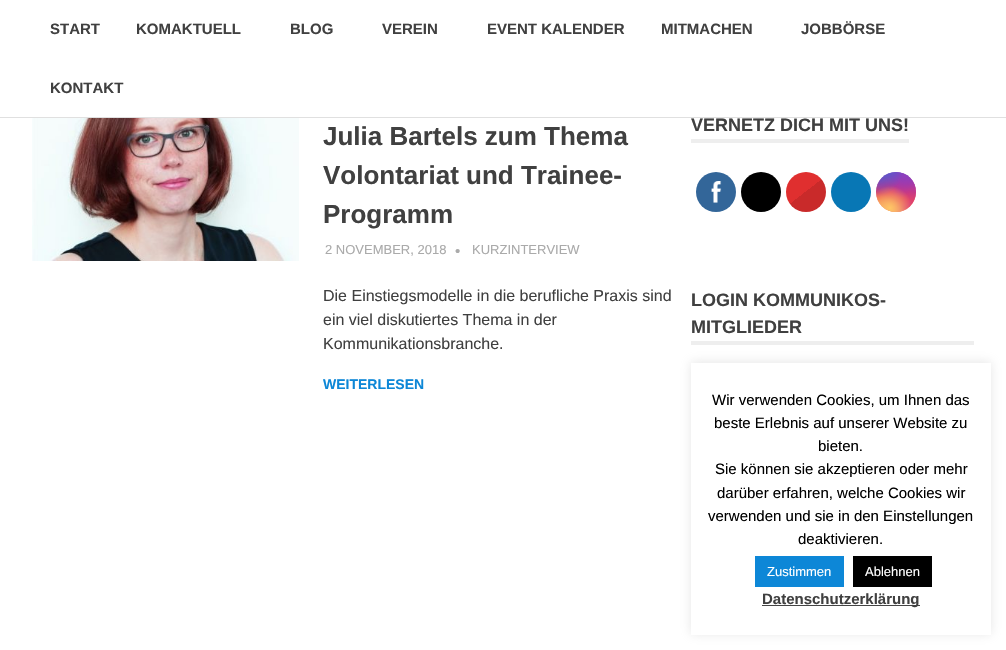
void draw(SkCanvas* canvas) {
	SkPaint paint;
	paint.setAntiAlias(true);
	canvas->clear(0xffffffff);
	paint.setColor(0xffe0e0e0);
	canvas->drawRect(SkRect::MakeXYWH(0, 117, 1006, 1), paint);
	SkFont f1(fontMgr->matchFamilyStyle("Liberation Sans", SkFontStyle::Bold()), 15);
	f1.setSubpixel(true);
	paint.setColor(0xff404040);
	canvas->drawString("START", 50, 34, f1, paint);
	canvas->drawString("KOMAKTUELL", 136, 34, f1, paint);
	canvas->drawString("BLOG", 290, 34, f1, paint);
	canvas->drawString("VEREIN", 382, 34, f1, paint);
	canvas->drawString("EVENT KALENDER", 487, 34, f1, paint);
	canvas->drawString("MITMACHEN", 661, 34, f1, paint);
	canvas->drawString("JOBBÖRSE", 801, 34, f1, paint);
	canvas->drawString("KONTAKT", 50, 93, f1, paint);
	canvas->drawImageRect(SkImages::DeferredFromEncodedData(SkData::MakeFromFileName("img1.png")), SkRect::MakeXYWH(32, 118, 267, 143), SkSamplingOptions());
	SkFont f2(fontMgr->matchFamilyStyle("Liberation Sans", SkFontStyle::Bold()), 26);
	f2.setSubpixel(true);
	canvas->drawString("Julia Bartels zum Thema", 323, 145, f2, paint);
	canvas->drawString("Volontariat und Trainee-", 323, 184, f2, paint);
	canvas->drawString("Programm", 323, 223, f2, paint);
	SkFont f3(fontMgr->matchFamilyStyle("Liberation Sans", SkFontStyle::Normal()), 13);
	f3.setSubpixel(true);
	paint.setColor(0xffaaaaaa);
	canvas->drawString("2 NOVEMBER, 2018", 325, 254, f3, paint);
	SkFont f4(fontMgr->matchFamilyStyle("Liberation Sans", SkFontStyle::Normal()), 15);
	f4.setSubpixel(true);
	canvas->drawString("•", 455, 256, f4, paint);
	canvas->drawString("KURZINTERVIEW", 472, 254, f3, paint);
	SkFont f5(fontMgr->matchFamilyStyle("Liberation Sans", SkFontStyle::Normal()), 16);
	f5.setSubpixel(true);
	paint.setColor(0xff404040);
	canvas->drawString("Die Einstiegsmodelle in die berufliche Praxis sind", 323, 301, f5, paint);
	canvas->drawString("ein viel diskutiertes Thema in der", 323, 325, f5, paint);
	canvas->drawString("Kommunikationsbranche.", 323, 349, f5, paint);
	SkFont f6(fontMgr->matchFamilyStyle("Liberation Sans", SkFontStyle::Bold()), 14);
	f6.setSubpixel(true);
	paint.setColor(0xff0d87d7);
	canvas->drawString("WEITERLESEN", 323, 389, f6, paint);
	paint.setColor(0xffeeeeee);
	canvas->drawRect(SkRect::MakeXYWH(691, 139, 218, 4), paint);
	SkFont f7(fontMgr->matchFamilyStyle("Liberation Sans", SkFontStyle::Bold()), 18);
	f7.setSubpixel(true);
	paint.setColor(0xff404040);
	canvas->drawString("VERNETZ DICH MIT UNS!", 691, 131, f7, paint);
	paint.setColor(0xff336699);
	canvas->drawCircle(716, 192, 20, paint);
	canvas->drawImageRect(SkImages::DeferredFromEncodedData(SkData::MakeFromFileName("img2.png")), SkRect::MakeXYWH(711, 181, 11, 22), SkSamplingOptions());
	paint.setColor(0xff000000);
	canvas->drawCircle(761, 192, 20, paint);
	{
		const SkColor colors[] = {0xffe02f2f, 0xffe02f2f, 0xffc92a2a, 0xffc92a2a};
		const float stops[] = {0.14, 0.49, 0.49, 0.85};
		const SkPoint ends[] = {{789, 170}, {823, 214}};
		paint.setShader(SkGradientShader::MakeLinear(ends, colors, stops, 4, SkTileMode::kClamp));
		paint.setAlpha(255);
	}
	canvas->drawCircle(806, 192, 20, paint);
	paint.setShader(nullptr);
	paint.setColor(0xff0877b5);
	canvas->drawCircle(851, 192, 20, paint);
	{
		const SkColor colors[] = {0xff6559ca, 0xffbc318f, 0xffe33f5f, 0xfff77638, 0xfffec66d};
		const float stops[] = {0, 0.3, 0.5, 0.7, 1};
		const SkPoint ends[] = {{896, 172}, {896, 212}};
		paint.setShader(SkGradientShader::MakeLinear(ends, colors, stops, 5, SkTileMode::kClamp));
		paint.setAlpha(255);
	}
	canvas->drawCircle(896, 192, 20, paint);
	{
		const SkColor colors[] = {0xffd9317a, 0x00d9317a};
		const float stops[] = {0, 1};
		paint.setShader(SkGradientShader::MakeRadial({916, 212}, 57, colors, stops, 2, SkTileMode::kClamp));
		paint.setAlpha(255);
	}
	canvas->drawCircle(896, 192, 20, paint);
	{
		const SkColor colors[] = {0xff893dc2, 0x00893dc2};
		const float stops[] = {0, 0.5};
		SkMatrix m = SkMatrix::Translate(900, 164).preScale(34, 68);
		paint.setShader(SkGradientShader::MakeRadial({0, 0}, 1, colors, stops, 2, SkTileMode::kClamp, 0, &m));
		paint.setAlpha(255);
	}
	canvas->drawCircle(896, 192, 20, paint);
	{
		const SkColor colors[] = {0xff893dc2, 0x00893dc2};
		const float stops[] = {0, 0.5};
		paint.setShader(SkGradientShader::MakeRadial({916, 172}, 57, colors, stops, 2, SkTileMode::kClamp));
		paint.setAlpha(255);
	}
	canvas->drawCircle(896, 192, 20, paint);
	{
		const SkColor colors[] = {0xff5258cf, 0x005258cf};
		const float stops[] = {0, 0.5};
		SkMatrix m = SkMatrix::Translate(884, 152).preScale(45, 85);
		paint.setShader(SkGradientShader::MakeRadial({0, 0}, 1, colors, stops, 2, SkTileMode::kClamp, 0, &m));
		paint.setAlpha(255);
	}
	canvas->drawCircle(896, 192, 20, paint);
	{
		const SkColor colors[] = {0xff5258cf, 0x005258cf};
		const float stops[] = {0, 0.5};
		SkMatrix m = SkMatrix::Translate(876, 162).preScale(57, 71);
		paint.setShader(SkGradientShader::MakeRadial({0, 0}, 1, colors, stops, 2, SkTileMode::kClamp, 0, &m));
		paint.setAlpha(255);
	}
	canvas->drawCircle(896, 192, 20, paint);
	{
		const SkColor colors[] = {0xfffec564, 0x00fec564};
		const float stops[] = {0, 0.5};
		paint.setShader(SkGradientShader::MakeRadial({876, 228}, 69, colors, stops, 2, SkTileMode::kClamp));
		paint.setAlpha(255);
	}
	canvas->drawCircle(896, 192, 20, paint);
	{
		const SkColor colors[] = {0xfffec564, 0x00fec564};
		const float stops[] = {0, 0.5};
		paint.setShader(SkGradientShader::MakeRadial({890, 208}, 44, colors, stops, 2, SkTileMode::kClamp));
		paint.setAlpha(255);
	}
	canvas->drawCircle(896, 192, 20, paint);
	paint.setShader(nullptr);
	paint.setColor(0xffeeeeee);
	canvas->drawRect(SkRect::MakeXYWH(691, 341, 283, 4), paint);
	paint.setColor(0xff404040);
	canvas->drawString("LOGIN KOMMUNIKOS-", 691, 306, f7, paint);
	canvas->drawString("MITGLIEDER", 691, 333, f7, paint);
	paint.setColor(0x4dacabab);
	paint.setMaskFilter(SkMaskFilter::MakeBlur(kNormal_SkBlurStyle, 5));
	canvas->drawRect(SkRect::MakeXYWH(691, 362, 300, 272), paint);
	paint.setMaskFilter(nullptr);
	paint.setColor(0xffffffff);
	canvas->drawRect(SkRect::MakeXYWH(691, 363, 300, 272), paint);
	paint.setColor(0xff000000);
	canvas->drawString("Wir verwenden Cookies, um Ihnen das", 712, 405, f4, paint);
	canvas->drawString("beste Erlebnis auf unserer Website zu", 714, 428, f4, paint);
	canvas->drawString("bieten.", 818, 451, f4, paint);
	canvas->drawString("Sie können sie akzeptieren oder mehr", 715, 474, f4, paint);
	canvas->drawString("darüber erfahren, welche Cookies wir", 717, 498, f4, paint);
	canvas->drawString("verwenden und sie in den Einstellungen", 708, 521, f4, paint);
	canvas->drawString("deaktivieren.", 798, 544, f4, paint);
	paint.setColor(0xff0d87d7);
	canvas->drawRect(SkRect::MakeXYWH(755, 556, 89, 31), paint);
	paint.setColor(0xffffffff);
	canvas->drawString("Zustimmen", 767, 576, f3, paint);
	paint.setColor(0xff000000);
	canvas->drawRect(SkRect::MakeXYWH(853, 556, 79, 31), paint);
	paint.setColor(0xffffffff);
	canvas->drawString("Ablehnen", 865, 576, f3, paint);
	paint.setColor(0xff444444);
	canvas->drawRect(SkRect::MakeXYWH(762, 605, 158, 1), paint);
	paint.setColor(0xff404040);
	canvas->drawString("Datenschutzerklärung", 762, 604, f1, paint);
}
